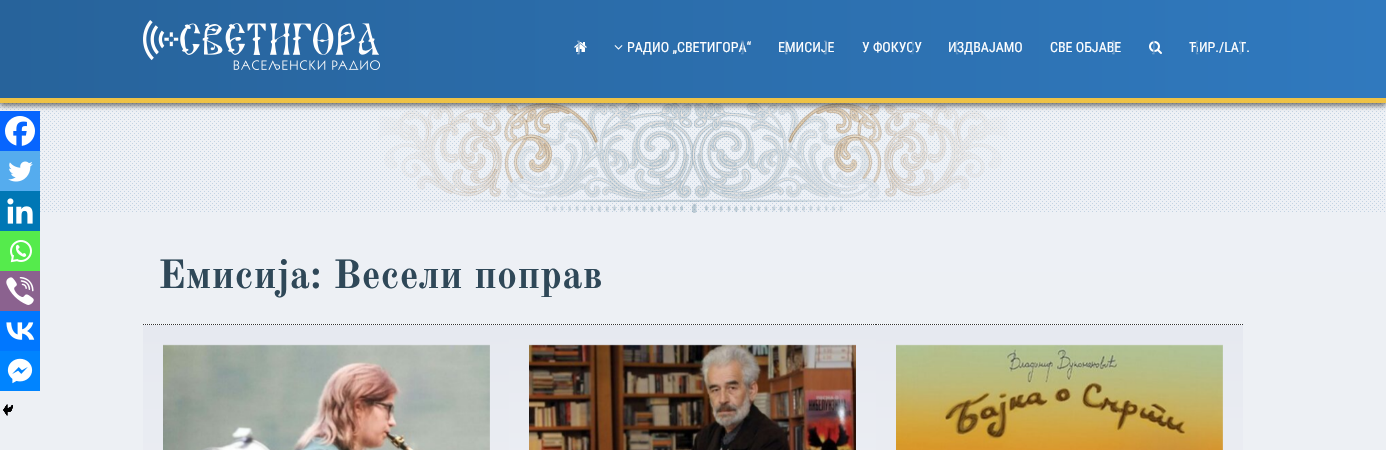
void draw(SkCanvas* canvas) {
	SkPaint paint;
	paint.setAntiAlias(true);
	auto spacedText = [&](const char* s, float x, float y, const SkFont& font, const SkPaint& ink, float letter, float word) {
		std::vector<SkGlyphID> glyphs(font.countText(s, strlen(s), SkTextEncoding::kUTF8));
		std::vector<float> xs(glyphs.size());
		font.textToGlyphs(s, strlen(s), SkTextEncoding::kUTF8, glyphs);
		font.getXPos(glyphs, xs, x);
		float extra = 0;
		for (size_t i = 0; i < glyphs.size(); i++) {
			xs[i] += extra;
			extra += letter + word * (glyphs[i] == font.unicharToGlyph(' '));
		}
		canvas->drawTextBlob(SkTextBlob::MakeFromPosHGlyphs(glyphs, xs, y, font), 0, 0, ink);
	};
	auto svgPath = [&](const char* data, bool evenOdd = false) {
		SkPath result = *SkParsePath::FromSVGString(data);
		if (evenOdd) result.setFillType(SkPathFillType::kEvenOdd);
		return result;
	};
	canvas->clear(0xffffffff);
	{
		const SkColor colors[] = {0xffe6e9f0, 0xffeef1f5};
		const float stops[] = {0, 1};
		const SkPoint ends[] = {{693, 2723}, {693, 0}};
		paint.setShader(SkGradientShader::MakeLinear(ends, colors, stops, 2, SkTileMode::kClamp));
		paint.setAlpha(255);
	}
	canvas->drawRect(SkRect::MakeXYWH(0, 103, 1386, 347), paint);
	canvas->drawImageRect(SkImages::DeferredFromEncodedData(SkData::MakeFromFileName("img5.png")), SkRect::MakeXYWH(378, 103, 630, 110), SkSamplingOptions());
	canvas->drawImageRect(SkImages::DeferredFromEncodedData(SkData::MakeFromFileName("img6.png")), SkRect::MakeXYWH(0, 103, 1385, 109), SkSamplingOptions());
	paint.setShader(nullptr);
	paint.setColor(0x80000000);
	paint.setMaskFilter(SkMaskFilter::MakeBlur(kNormal_SkBlurStyle, 2.5));
	canvas->drawRect(SkRect::MakeXYWH(0, 3, 1386, 103), paint);
	paint.setMaskFilter(nullptr);
	{
		const SkColor colors[] = {0xff27639b, 0xff3079be};
		const float stops[] = {0, 1};
		const SkPoint ends[] = {{0, 49}, {1386, 49}};
		paint.setShader(SkGradientShader::MakeLinear(ends, colors, stops, 2, SkTileMode::kClamp));
		paint.setAlpha(255);
	}
	canvas->drawRect(SkRect::MakeXYWH(0, 0, 1386, 98), paint);
	paint.setShader(nullptr);
	paint.setColor(0xffeec246);
	canvas->drawRect(SkRect::MakeXYWH(0, 98, 1386, 5), paint);
	canvas->drawImageRect(SkImages::DeferredFromEncodedData(SkData::MakeFromFileName("img1.png")), SkRect::MakeXYWH(143, 20, 237, 50), SkSamplingOptions());
	canvas->drawImageRect(SkImages::DeferredFromEncodedData(SkData::MakeFromFileName("img2.png")), SkRect::MakeXYWH(574, 42, 13, 10), SkSamplingOptions());
	SkFont f1(fontMgr->matchFamilyStyle("Roboto Condensed", SkFontStyle::Normal()), 14);
	f1.setSubpixel(true);
	paint.setColor(0xff8aaed0);
	canvas->drawString("]", 577, 52, f1, paint);
	paint.setColor(0xffffffff);
	canvas->drawString("РАДИО „СВЕТИГОРА“", 627, 52, f1, paint);
	paint.setColor(0xff6092c2);
	canvas->drawString("]", 741, 52, f1, paint);
	canvas->drawImageRect(SkImages::DeferredFromEncodedData(SkData::MakeFromFileName("img3.png")), SkRect::MakeXYWH(614, 45, 9, 5), SkSamplingOptions());
	paint.setColor(0xffffffff);
	canvas->drawString("ЕМИСИЈЕ", 778, 52, f1, paint);
	paint.setColor(0xff6d9bc7);
	canvas->drawString("[", 784, 52, f1, paint);
	paint.setColor(0xff74a1cb);
	canvas->drawString("]", 824, 52, f1, paint);
	paint.setColor(0xffffffff);
	canvas->drawString("У ФОКУСУ", 862, 52, f1, paint);
	paint.setColor(0xff4682bb);
	canvas->drawString("]", 911, 52, f1, paint);
	paint.setColor(0xffffffff);
	canvas->drawString("ИЗДВАЈАМО", 948, 52, f1, paint);
	paint.setColor(0xff5990c3);
	canvas->drawString("[", 955, 52, f1, paint);
	paint.setColor(0xffffffff);
	canvas->drawString("СВЕ ОБЈАВЕ", 1050, 52, f1, paint);
	paint.setColor(0xff74a1cb);
	canvas->drawString("]", 1112, 52, f1, paint);
	canvas->drawImageRect(SkImages::DeferredFromEncodedData(SkData::MakeFromFileName("img4.png")), SkRect::MakeXYWH(1149, 41, 13, 13), SkSamplingOptions());
	paint.setColor(0xff6599cb);
	canvas->drawString("]", 1152, 52, f1, paint);
	paint.setColor(0xffffffff);
	canvas->drawString("ЋИР./LAT.", 1189, 52, f1, paint);
	paint.setColor(0xff5990c3);
	canvas->drawString("[", 1195, 52, f1, paint);
	canvas->drawString("]", 1239, 52, f1, paint);
	paint.setColor(0xff0765fe);
	canvas->drawRect(SkRect::MakeXYWH(0, 111, 40, 40), paint);
	canvas->drawImageRect(SkImages::DeferredFromEncodedData(SkData::MakeFromFileName("img7.png")), SkRect::MakeXYWH(5, 116, 30, 30), SkSamplingOptions());
	paint.setColor(0xff55acee);
	canvas->drawRect(SkRect::MakeXYWH(0, 151, 40, 40), paint);
	canvas->drawImageRect(SkImages::DeferredFromEncodedData(SkData::MakeFromFileName("img8.png")), SkRect::MakeXYWH(8, 161, 25, 21), SkSamplingOptions());
	paint.setColor(0xff0077b5);
	canvas->drawRect(SkRect::MakeXYWH(0, 191, 40, 40), paint);
	canvas->drawImageRect(SkImages::DeferredFromEncodedData(SkData::MakeFromFileName("img9.png")), SkRect::MakeXYWH(7, 198, 26, 26), SkSamplingOptions());
	paint.setColor(0xff55eb4c);
	canvas->drawRect(SkRect::MakeXYWH(0, 231, 40, 40), paint);
	canvas->drawImageRect(SkImages::DeferredFromEncodedData(SkData::MakeFromFileName("img10.png")), SkRect::MakeXYWH(10, 240, 22, 23), SkSamplingOptions());
	paint.setColor(0xff8b628f);
	canvas->drawRect(SkRect::MakeXYWH(0, 271, 40, 40), paint);
	canvas->drawImageRect(SkImages::DeferredFromEncodedData(SkData::MakeFromFileName("img11.png")), SkRect::MakeXYWH(6, 277, 28, 28), SkSamplingOptions());
	paint.setColor(0xff0077ff);
	canvas->drawRect(SkRect::MakeXYWH(0, 311, 40, 40), paint);
	canvas->drawImageRect(SkImages::DeferredFromEncodedData(SkData::MakeFromFileName("img12.png")), SkRect::MakeXYWH(6, 322, 29, 18), SkSamplingOptions());
	paint.setColor(0xff0084ff);
	canvas->drawRect(SkRect::MakeXYWH(0, 351, 40, 40), paint);
	canvas->drawImageRect(SkImages::DeferredFromEncodedData(SkData::MakeFromFileName("img13.png")), SkRect::MakeXYWH(7, 358, 26, 26), SkSamplingOptions());
	canvas->drawImageRect(SkImages::DeferredFromEncodedData(SkData::MakeFromFileName("img15.png")), SkRect::MakeXYWH(3, 404, 10, 12), SkSamplingOptions());
	canvas->drawImageRect(SkImages::DeferredFromEncodedData(SkData::MakeFromFileName("img17.png")), SkRect::MakeXYWH(3, 404, 10, 12), SkSamplingOptions());
	canvas->drawImageRect(SkImages::DeferredFromEncodedData(SkData::MakeFromFileName("img19.png")), SkRect::MakeXYWH(3, 404, 10, 12), SkSamplingOptions());
	canvas->drawImageRect(SkImages::DeferredFromEncodedData(SkData::MakeFromFileName("img21.png")), SkRect::MakeXYWH(3, 404, 10, 12), SkSamplingOptions());
	canvas->drawImageRect(SkImages::DeferredFromEncodedData(SkData::MakeFromFileName("img22.png")), SkRect::MakeXYWH(3, 404, 10, 12), SkSamplingOptions());
	canvas->drawImageRect(SkImages::DeferredFromEncodedData(SkData::MakeFromFileName("img23.png")), SkRect::MakeXYWH(3, 404, 10, 12), SkSamplingOptions());
	canvas->drawImageRect(SkImages::DeferredFromEncodedData(SkData::MakeFromFileName("img14.png")), SkRect::MakeXYWH(3, 404, 10, 12), SkSamplingOptions());
	{
		const SkColor colors[] = {0xffe6e9f0, 0xffffffff};
		const float stops[] = {0, 1};
		const SkPoint ends[] = {{326, -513}, {327, 325}};
		paint.setShader(SkGradientShader::MakeLinear(ends, colors, stops, 2, SkTileMode::kClamp));
		paint.setAlpha(255);
	}
	canvas->drawRect(SkRect::MakeXYWH(143, 324, 367, 1), paint);
	{
		const SkColor colors[] = {0xffe6e9f0, 0xffffffff};
		const float stops[] = {0, 1};
		const SkPoint ends[] = {{326, 325}, {327, 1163}};
		paint.setShader(SkGradientShader::MakeLinear(ends, colors, stops, 2, SkTileMode::kClamp));
		paint.setAlpha(255);
	}
	canvas->drawRect(SkRect::MakeXYWH(143, 325, 366, 125), paint);
	paint.setStroke(true);
	paint.setStrokeWidth(1);
	paint.setShader(nullptr);
	paint.setColor(0xff333333);
	paint.setPathEffect(SkDashPathEffect::Make({{1, 1}}, 0));
	canvas->drawPath(svgPath("M143 324.5H510"), paint);
	paint.setPathEffect(nullptr);
	canvas->drawImageRect(SkImages::DeferredFromEncodedData(SkData::MakeFromFileName("img16.png")), SkRect::MakeXYWH(163, 344, 327, 106), SkSamplingOptions());
	paint.setStroke(false);
	{
		const SkColor colors[] = {0xffe6e9f0, 0xffffffff};
		const float stops[] = {0, 1};
		const SkPoint ends[] = {{693, -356}, {693, 325}};
		paint.setShader(SkGradientShader::MakeLinear(ends, colors, stops, 2, SkTileMode::kClamp));
		paint.setAlpha(255);
	}
	canvas->drawRect(SkRect::MakeXYWH(509, 324, 367, 1), paint);
	{
		const SkColor colors[] = {0xffe6e9f0, 0xffffffff};
		const float stops[] = {0, 1};
		const SkPoint ends[] = {{693, 325}, {693, 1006}};
		paint.setShader(SkGradientShader::MakeLinear(ends, colors, stops, 2, SkTileMode::kClamp));
		paint.setAlpha(255);
	}
	canvas->drawRect(SkRect::MakeXYWH(509, 325, 367, 125), paint);
	paint.setStroke(true);
	paint.setShader(nullptr);
	paint.setColor(0xff333333);
	paint.setPathEffect(SkDashPathEffect::Make({{1, 1}}, 0));
	canvas->drawPath(svgPath("M509 324.5H876"), paint);
	paint.setPathEffect(nullptr);
	canvas->drawImageRect(SkImages::DeferredFromEncodedData(SkData::MakeFromFileName("img18.png")), SkRect::MakeXYWH(529, 344, 327, 106), SkSamplingOptions());
	paint.setStroke(false);
	{
		const SkColor colors[] = {0xffe6e9f0, 0xffffffff};
		const float stops[] = {0, 1};
		const SkPoint ends[] = {{1060, -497}, {1060, 325}};
		paint.setShader(SkGradientShader::MakeLinear(ends, colors, stops, 2, SkTileMode::kClamp));
		paint.setAlpha(255);
	}
	canvas->drawRect(SkRect::MakeXYWH(876, 324, 367, 1), paint);
	{
		const SkColor colors[] = {0xffe6e9f0, 0xffffffff};
		const float stops[] = {0, 1};
		const SkPoint ends[] = {{1060, 325}, {1060, 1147}};
		paint.setShader(SkGradientShader::MakeLinear(ends, colors, stops, 2, SkTileMode::kClamp));
		paint.setAlpha(255);
	}
	canvas->drawRect(SkRect::MakeXYWH(876, 325, 367, 125), paint);
	paint.setStroke(true);
	paint.setShader(nullptr);
	paint.setColor(0xff333333);
	paint.setPathEffect(SkDashPathEffect::Make({{1, 1}}, 0));
	canvas->drawPath(svgPath("M876 324.5H1243"), paint);
	paint.setPathEffect(nullptr);
	canvas->drawImageRect(SkImages::DeferredFromEncodedData(SkData::MakeFromFileName("img20.png")), SkRect::MakeXYWH(896, 344, 327, 106), SkSamplingOptions());
	SkFont f2(fontMgr->matchFamilyStyle("Old Standard TT", SkFontStyle::Bold()), 40);
	f2.setSubpixel(true);
	paint.setStroke(false);
	paint.setColor(0xff2f4858);
	spacedText("Емисија: Весели поправ", 158, 288, f2, paint, 0.2, 0);
}
